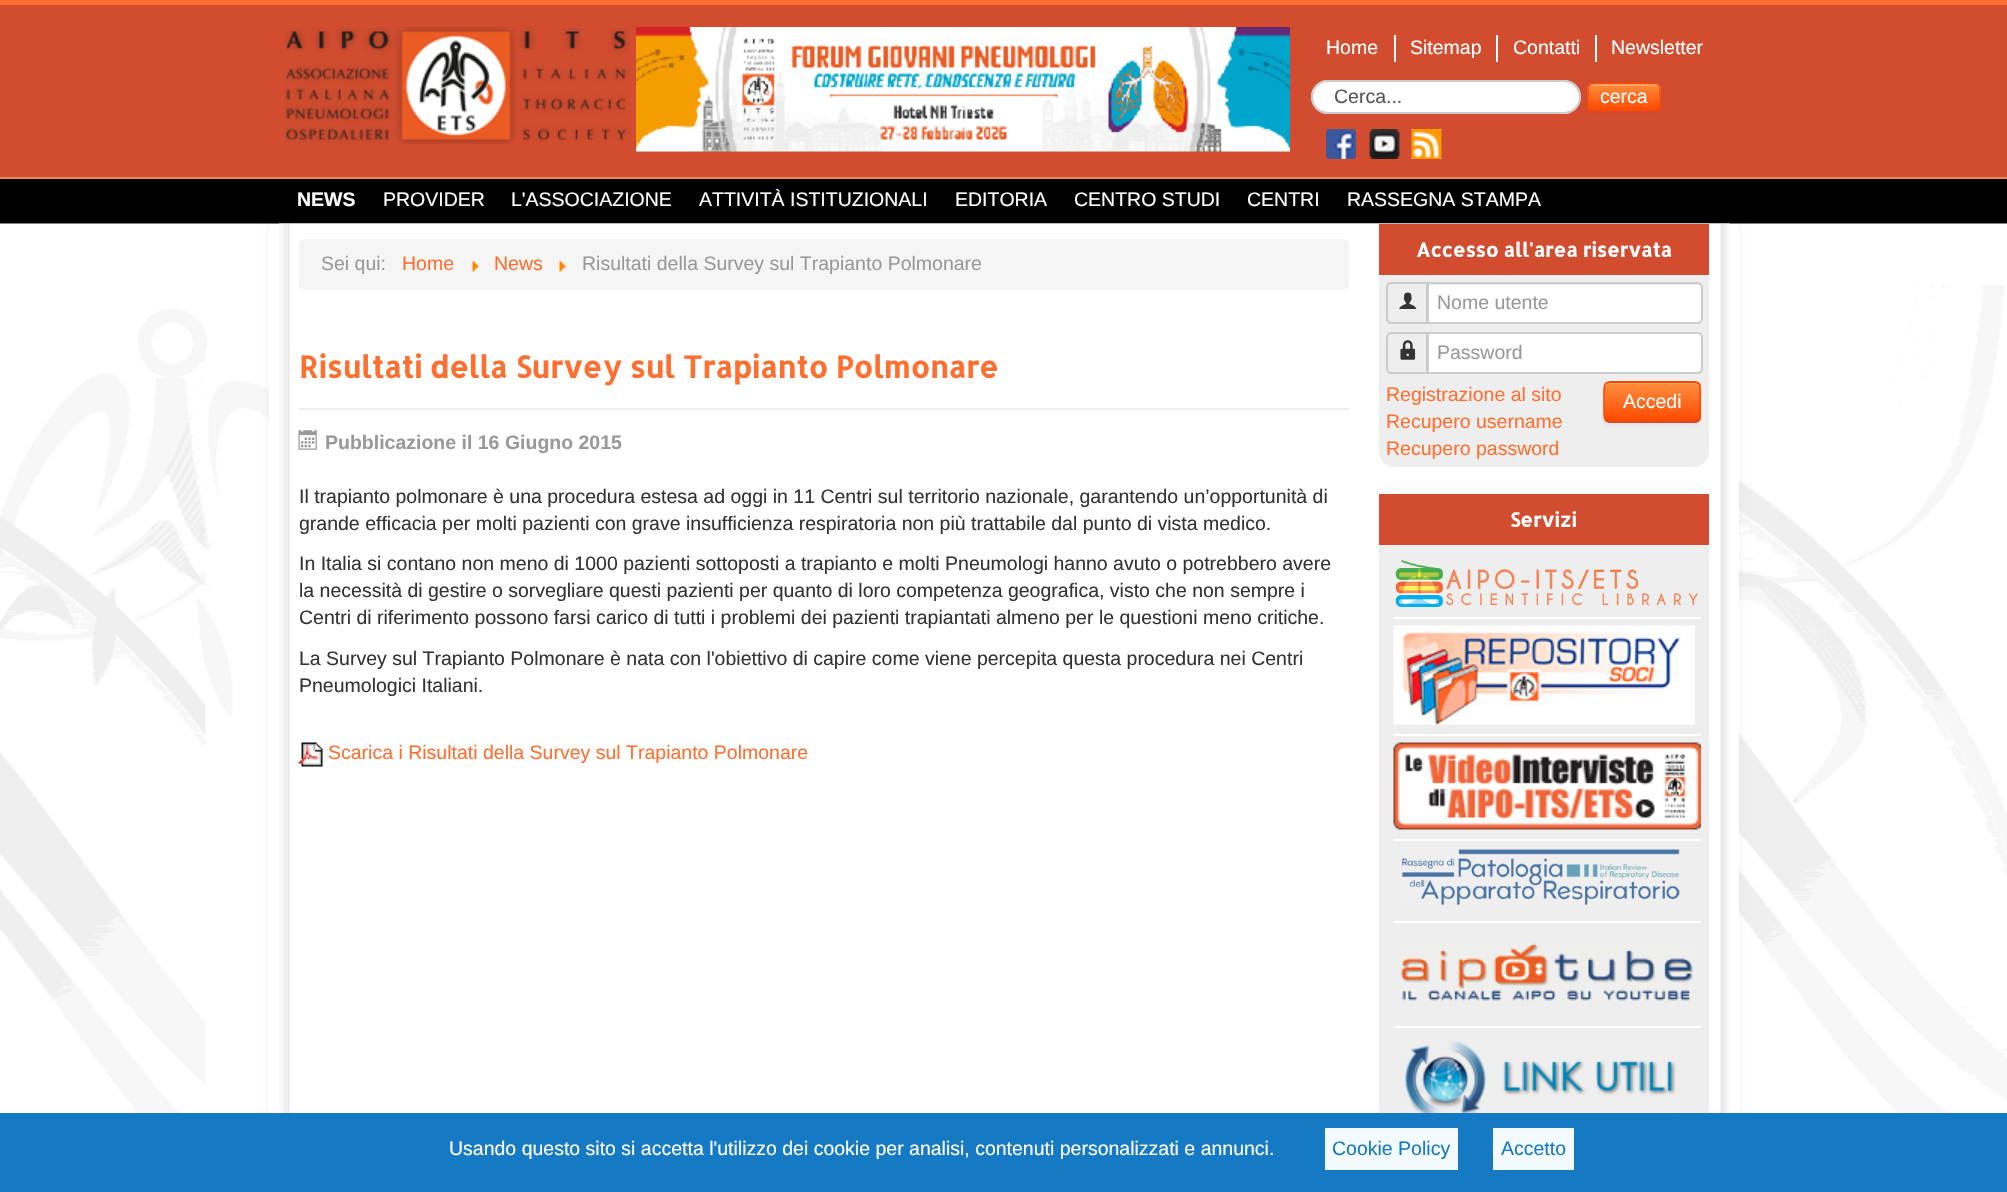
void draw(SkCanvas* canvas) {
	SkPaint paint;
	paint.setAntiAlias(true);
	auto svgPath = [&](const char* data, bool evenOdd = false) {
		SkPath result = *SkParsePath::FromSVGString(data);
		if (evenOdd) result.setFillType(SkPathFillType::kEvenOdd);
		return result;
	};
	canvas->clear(0xffff6f30);
	paint.setColor(0xffd24d30);
	canvas->drawRect(SkRect::MakeXYWH(0, 5, 2007, 172), paint);
	canvas->drawImageRect(SkImages::DeferredFromEncodedData(SkData::MakeFromFileName("img1.png")), SkRect::MakeXYWH(284, 27, 346, 117), SkSamplingOptions());
	canvas->drawImageRect(SkImages::DeferredFromEncodedData(SkData::MakeFromFileName("img2.png")), SkRect::MakeXYWH(636, 27, 654, 125), SkSamplingOptions());
	paint.setColor(0xffffffff);
	canvas->drawRect(SkRect::MakeXYWH(1394, 35, 2, 27), paint);
	SkFont f1(fontMgr->matchFamilyStyle("Liberation Sans", SkFontStyle::Normal()), 19.5);
	f1.setSubpixel(true);
	canvas->drawString("Home", 1326, 54, f1, paint);
	canvas->drawRect(SkRect::MakeXYWH(1496, 35, 2, 27), paint);
	canvas->drawString("Sitemap", 1410, 54, f1, paint);
	canvas->drawRect(SkRect::MakeXYWH(1595, 35, 2, 27), paint);
	canvas->drawString("Contatti", 1513, 54, f1, paint);
	canvas->drawString("Newsletter", 1611, 54, f1, paint);
	canvas->drawRoundRect(SkRect::MakeXYWH(1311, 80, 270, 34), 17, 17, paint);
	paint.setColor(0xffececec);
	canvas->drawPath(svgPath("M1328 82H1564C1572 82 1580 90 1580 98V97C1580 88 1573 81 1564 81H1329C1323 81 1317 85 1315 90C1318 85 1323 82 1328 82Z"), paint);
	paint.setStroke(true);
	paint.setStrokeWidth(2);
	paint.setColor(0xffcccccc);
	canvas->drawRoundRect(SkRect::MakeXYWH(1312, 81, 268, 32), 16, 16, paint);
	paint.setStroke(false);
	paint.setColor(0xff555555);
	canvas->drawString("Cerca...", 1334, 103, f1, paint);
	paint.setColor(0x0d000000);
	paint.setMaskFilter(SkMaskFilter::MakeBlur(kNormal_SkBlurStyle, 1.5));
	canvas->drawRoundRect(SkRect::MakeXYWH(1587, 84, 74, 30), 6, 6, paint);
	paint.setMaskFilter(nullptr);
	paint.setColor(0xffd24c30);
	canvas->drawRoundRect(SkRect::MakeXYWH(1587, 83, 74, 30), 6, 6, paint);
	canvas->save();
	canvas->clipPath(svgPath("M1593 83H1655C1658.5 83 1661 85.5 1661 89V107C1661 110.5 1658.5 113 1655 113H1593C1589.5 113 1587 110.5 1587 107V89C1587 85.5 1589.5 83 1593 83Z"), true);
	{
		const SkColor colors[] = {0xffff8e3d, 0xffff4700};
		const float stops[] = {0, 1};
		const SkPoint ends[] = {{1624, 84}, {1624, 111}};
		paint.setShader(SkGradientShader::MakeLinear(ends, colors, stops, 2, SkTileMode::kClamp));
		paint.setAlpha(255);
	}
	canvas->drawRect(SkRect::MakeXYWH(1587, 84, 74, 27), paint);
	canvas->restore();
	paint.setShader(nullptr);
	paint.setColor(0x33ffffff);
	canvas->drawPath(svgPath("M1593 86H1654C1657 86 1659 88 1659 90V89C1659 86 1657 84 1654 84H1594C1592 84 1590 86 1589 88C1590 87 1592 86 1593 86Z"), paint);
	paint.setStroke(true);
	paint.setStrokeWidth(1.5);
	paint.setColor(0xffd7462a);
	canvas->drawPath(svgPath("M1658 110C1657 111 1656 112 1654.5 112H1593C1591.5 112 1590.5 111 1589.5 110"), paint);
	paint.setColor(0xffff4700);
	canvas->drawPath(svgPath("M1589.5 110C1586.5 107.5 1588 101 1588 97.5C1588 82 1587 83 1603 83H1644C1658 83 1660 81 1660 94.5C1660 98 1661 107 1658 110"), paint);
	paint.setStroke(false);
	paint.setColor(0xffffffff);
	canvas->drawString("cerca", 1600, 103, f1, paint);
	canvas->drawImageRect(SkImages::DeferredFromEncodedData(SkData::MakeFromFileName("img3.png")), SkRect::MakeXYWH(1326, 129, 30, 30), SkSamplingOptions());
	canvas->drawImageRect(SkImages::DeferredFromEncodedData(SkData::MakeFromFileName("img4.png")), SkRect::MakeXYWH(1369, 129, 31, 30), SkSamplingOptions());
	canvas->drawImageRect(SkImages::DeferredFromEncodedData(SkData::MakeFromFileName("img5.png")), SkRect::MakeXYWH(1411, 129, 31, 30), SkSamplingOptions());
	paint.setColor(0xff000000);
	canvas->drawRect(SkRect::MakeXYWH(0, 179, 2007, 45), paint);
	paint.setColor(0xffea8d55);
	canvas->drawRect(SkRect::MakeXYWH(0, 177, 2007, 2), paint);
	SkFont f2(fontMgr->matchFamilyStyle("Liberation Sans", SkFontStyle::Bold()), 19.5);
	f2.setSubpixel(true);
	paint.setColor(0xffffffff);
	canvas->drawString("NEWS", 297, 206, f2, paint);
	canvas->drawString("PROVIDER", 383, 206, f1, paint);
	canvas->drawString("L'ASSOCIAZIONE", 511, 206, f1, paint);
	canvas->drawString("ATTIVITÀ ISTITUZIONALI", 699, 206, f1, paint);
	canvas->drawString("EDITORIA", 955, 206, f1, paint);
	canvas->drawString("CENTRO STUDI", 1074, 206, f1, paint);
	canvas->drawString("CENTRI", 1247, 206, f1, paint);
	canvas->drawString("RASSEGNA STAMPA", 1347, 206, f1, paint);
	canvas->drawImageRect(SkImages::DeferredFromEncodedData(SkData::MakeFromFileName("img6.png")), SkRect::MakeXYWH(0, 223, 2007, 890), SkSamplingOptions());
	paint.setColor(0x0d000000);
	paint.setMaskFilter(SkMaskFilter::MakeBlur(kNormal_SkBlurStyle, 4.5));
	canvas->drawRect(SkRect::MakeXYWH(269, 224, 1470, 961), paint);
	paint.setMaskFilter(nullptr);
	paint.setColor(0xffffffff);
	canvas->drawRect(SkRect::MakeXYWH(269, 224, 1470, 889), paint);
	canvas->drawImageRect(SkImages::DeferredFromEncodedData(SkData::MakeFromFileName("img7.png")), SkRect::MakeXYWH(279, 223, 1451, 890), SkSamplingOptions());
	paint.setColor(0xffeeeeee);
	canvas->drawRoundRect(SkRect::MakeXYWH(1379, 224, 330, 243), 15, 15, paint);
	paint.setColor(0xffd24c30);
	canvas->drawRect(SkRect::MakeXYWH(1379, 224, 330, 51), paint);
	SkFont f3(fontMgr->matchFamilyStyle("Allerta", SkFontStyle::Bold()), 19.5);
	f3.setSubpixel(true);
	paint.setColor(0xffffffff);
	canvas->drawString("Accesso all'area riservata", 1416, 257, f3, paint);
	paint.setStroke(true);
	paint.setStrokeWidth(2);
	paint.setColor(0xffcccccc);
	canvas->drawPath(svgPath("M1391 283H1427V323H1391C1389 323 1387 321 1387 319V287C1387 285 1389 283 1391 283Z"), paint);
	canvas->drawImageRect(SkImages::DeferredFromEncodedData(SkData::MakeFromFileName("img8.png")), SkRect::MakeXYWH(1399, 292, 18, 17), SkSamplingOptions());
	paint.setStroke(false);
	paint.setColor(0xffffffff);
	canvas->drawPath(svgPath("M1427 282H1698C1701 282 1703 284 1703 287V319C1703 322 1701 324 1698 324H1427Z"), paint);
	paint.setColor(0xffececec);
	canvas->drawPath(svgPath("M1428 285H1698C1700 285 1701 286 1701 288V287C1701 285 1700 284 1698 284H1428Z"), paint);
	paint.setStroke(true);
	paint.setColor(0xffcccccc);
	canvas->drawPath(svgPath("M1428 283H1698C1700 283 1702 285 1702 287V319C1702 321 1700 323 1698 323H1428Z"), paint);
	paint.setStroke(false);
	paint.setColor(0xff999999);
	canvas->drawString("Nome utente", 1437, 309, f1, paint);
	paint.setStroke(true);
	paint.setColor(0xffcccccc);
	canvas->drawPath(svgPath("M1391 333H1427V373H1391C1389 373 1387 371 1387 369V337C1387 335 1389 333 1391 333Z"), paint);
	canvas->drawImageRect(SkImages::DeferredFromEncodedData(SkData::MakeFromFileName("img9.png")), SkRect::MakeXYWH(1400, 340, 16, 20), SkSamplingOptions());
	paint.setStroke(false);
	paint.setColor(0xffffffff);
	canvas->drawPath(svgPath("M1428 333H1698C1700 333 1702 335 1702 337V369C1702 371 1700 373 1698 373H1428Z"), paint);
	paint.setStroke(true);
	paint.setColor(0xffcccccc);
	canvas->drawPath(svgPath("M1428 333H1698C1700 333 1702 335 1702 337V369C1702 371 1700 373 1698 373H1428Z"), paint);
	paint.setStroke(false);
	paint.setColor(0xff999999);
	canvas->drawString("Password", 1437, 359, f1, paint);
	paint.setColor(0xffff6f30);
	canvas->drawString("Registrazione al sito", 1386, 401, f1, paint);
	canvas->drawString("Recupero username", 1386, 428, f1, paint);
	canvas->drawString("Recupero password", 1386, 455, f1, paint);
	paint.setColor(0x0d000000);
	paint.setMaskFilter(SkMaskFilter::MakeBlur(kNormal_SkBlurStyle, 1.5));
	canvas->drawRoundRect(SkRect::MakeXYWH(1604, 383, 97, 42), 6, 6, paint);
	paint.setMaskFilter(nullptr);
	paint.setColor(0xffd24c30);
	canvas->drawRoundRect(SkRect::MakeXYWH(1604, 381, 97, 42), 6, 6, paint);
	canvas->save();
	canvas->clipPath(svgPath("M1610 381H1695C1698.5 381 1701 383.5 1701 387V417C1701 420.5 1698.5 423 1695 423H1610C1606.5 423 1604 420.5 1604 417V387C1604 383.5 1606.5 381 1610 381Z"), true);
	{
		const SkColor colors[] = {0xffff8e3d, 0xffff4700};
		const float stops[] = {0, 1};
		const SkPoint ends[] = {{1652, 383}, {1652, 422}};
		paint.setShader(SkGradientShader::MakeLinear(ends, colors, stops, 2, SkTileMode::kClamp));
		paint.setAlpha(255);
	}
	canvas->drawRect(SkRect::MakeXYWH(1604, 383, 97, 39), paint);
	canvas->restore();
	paint.setShader(nullptr);
	paint.setColor(0xffffa463);
	canvas->drawPath(svgPath("M1610 384H1695C1697 384 1700 386 1700 388C1700 385 1698 383 1695 383H1610C1607 383 1605 385 1605 388C1605 386 1607 384 1610 384Z"), paint);
	paint.setStroke(true);
	paint.setStrokeWidth(1.5);
	paint.setColor(0xffd7462a);
	canvas->drawPath(svgPath("M1698.5 420.5L1695.5 422H1609L1606 420.5"), paint);
	paint.setColor(0xffff4700);
	canvas->drawPath(svgPath("M1606 420.5C1603.5 418.5 1604 415 1604 412V402C1604 379.5 1601 382 1624 382H1681C1703.5 382 1700 379.5 1700 402V412C1700 415 1701 418.5 1698.5 420.5"), paint);
	paint.setStroke(false);
	paint.setColor(0xffffffff);
	canvas->drawString("Accedi", 1623, 408, f1, paint);
	paint.setColor(0xffeeeeee);
	canvas->drawRect(SkRect::MakeXYWH(1379, 545, 330, 568), paint);
	paint.setColor(0xffd24c30);
	canvas->drawRect(SkRect::MakeXYWH(1379, 494, 330, 51), paint);
	paint.setColor(0xffffffff);
	canvas->drawString("Servizi", 1510, 527, f3, paint);
	canvas->drawImageRect(SkImages::DeferredFromEncodedData(SkData::MakeFromFileName("img10.png")), SkRect::MakeXYWH(1395, 560, 304, 47), SkSamplingOptions());
	canvas->drawRect(SkRect::MakeXYWH(1394, 617, 307, 2), paint);
	canvas->drawImageRect(SkImages::DeferredFromEncodedData(SkData::MakeFromFileName("img11.png")), SkRect::MakeXYWH(1393, 625, 302, 100), SkSamplingOptions());
	canvas->drawRect(SkRect::MakeXYWH(1394, 734, 307, 2), paint);
	canvas->drawImageRect(SkImages::DeferredFromEncodedData(SkData::MakeFromFileName("img12.png")), SkRect::MakeXYWH(1393, 742, 308, 88), SkSamplingOptions());
	canvas->drawRect(SkRect::MakeXYWH(1394, 839, 307, 2), paint);
	canvas->drawImageRect(SkImages::DeferredFromEncodedData(SkData::MakeFromFileName("img13.png")), SkRect::MakeXYWH(1402, 849, 278, 56), SkSamplingOptions());
	canvas->drawRect(SkRect::MakeXYWH(1394, 921, 307, 2), paint);
	canvas->drawImageRect(SkImages::DeferredFromEncodedData(SkData::MakeFromFileName("img14.png")), SkRect::MakeXYWH(1400, 943, 294, 58), SkSamplingOptions());
	canvas->drawRect(SkRect::MakeXYWH(1394, 1026, 307, 2), paint);
	canvas->drawImageRect(SkImages::DeferredFromEncodedData(SkData::MakeFromFileName("img15.png")), SkRect::MakeXYWH(1404, 1040, 272, 73), SkSamplingOptions());
	paint.setColor(0xfff5f5f5);
	canvas->drawRoundRect(SkRect::MakeXYWH(299, 239, 1050, 51), 6, 6, paint);
	paint.setColor(0xff999999);
	canvas->drawString("Sei qui:", 321, 270, f1, paint);
	paint.setColor(0xffff6f30);
	canvas->drawString("Home", 402, 270, f1, paint);
	canvas->drawImageRect(SkImages::DeferredFromEncodedData(SkData::MakeFromFileName("img16.png")), SkRect::MakeXYWH(472, 260, 7, 12), SkSamplingOptions());
	canvas->drawString("News", 494, 270, f1, paint);
	canvas->drawImageRect(SkImages::DeferredFromEncodedData(SkData::MakeFromFileName("img17.png")), SkRect::MakeXYWH(559, 260, 7, 12), SkSamplingOptions());
	paint.setColor(0xff999999);
	canvas->drawString("Risultati della Survey sul Trapianto Polmonare", 582, 270, f1, paint);
	paint.setColor(0xffeeeeee);
	canvas->drawRect(SkRect::MakeXYWH(299, 408, 1050, 2), paint);
	SkFont f4(fontMgr->matchFamilyStyle("Allerta", SkFontStyle::Bold()), 30);
	f4.setSubpixel(true);
	paint.setColor(0xffff6f30);
	canvas->drawString("Risultati della Survey sul Trapianto Polmonare", 299, 378, f4, paint);
	canvas->drawImageRect(SkImages::DeferredFromEncodedData(SkData::MakeFromFileName("img18.png")), SkRect::MakeXYWH(298, 430, 19, 20), SkSamplingOptions());
	paint.setColor(0xff999999);
	canvas->drawString("Pubblicazione il 16 Giugno 2015", 325, 449, f2, paint);
	paint.setColor(0xff333333);
	canvas->drawString("Il trapianto polmonare è una procedura estesa ad oggi in 11 Centri sul territorio nazionale, garantendo un’opportunità di", 299, 503, f1, paint);
	canvas->drawString("grande efficacia per molti pazienti con grave insufficienza respiratoria non più trattabile dal punto di vista medico.", 299, 530, f1, paint);
	canvas->drawString("In Italia si contano non meno di 1000 pazienti sottoposti a trapianto e molti Pneumologi hanno avuto o potrebbero avere", 299, 570, f1, paint);
	canvas->drawString("la necessità di gestire o sorvegliare questi pazienti per quanto di loro competenza geografica, visto che non sempre i", 299, 597, f1, paint);
	canvas->drawString("Centri di riferimento possono farsi carico di tutti i problemi dei pazienti trapiantati almeno per le questioni meno critiche.", 299, 624, f1, paint);
	canvas->drawString("La Survey sul Trapianto Polmonare è nata con l'obiettivo di capire come viene percepita questa procedura nei Centri", 299, 665, f1, paint);
	canvas->drawString("Pneumologici Italiani.", 299, 692, f1, paint);
	canvas->drawImageRect(SkImages::DeferredFromEncodedData(SkData::MakeFromFileName("img19.png")), SkRect::MakeXYWH(298, 742, 25, 25), SkSamplingOptions());
	paint.setColor(0xffff6f30);
	canvas->drawString("Scarica i Risultati della Survey sul Trapianto Polmonare", 328, 759, f1, paint);
	paint.setColor(0xff1679c3);
	canvas->drawRect(SkRect::MakeXYWH(0, 1113, 2007, 79), paint);
	paint.setColor(0xffffffff);
	canvas->drawString("Usando questo sito si accetta l'utilizzo dei cookie per analisi, contenuti personalizzati e annunci.", 449, 1155, f1, paint);
	paint.setColor(0xfff2fafd);
	canvas->drawRect(SkRect::MakeXYWH(1325, 1128, 133, 42), paint);
	paint.setColor(0xff1679c3);
	canvas->drawString("Cookie Policy", 1332, 1155, f1, paint);
	paint.setColor(0xfff2fafd);
	canvas->drawRect(SkRect::MakeXYWH(1493, 1128, 81, 42), paint);
	paint.setColor(0xff1679c3);
	canvas->drawString("Accetto", 1501, 1155, f1, paint);
}
